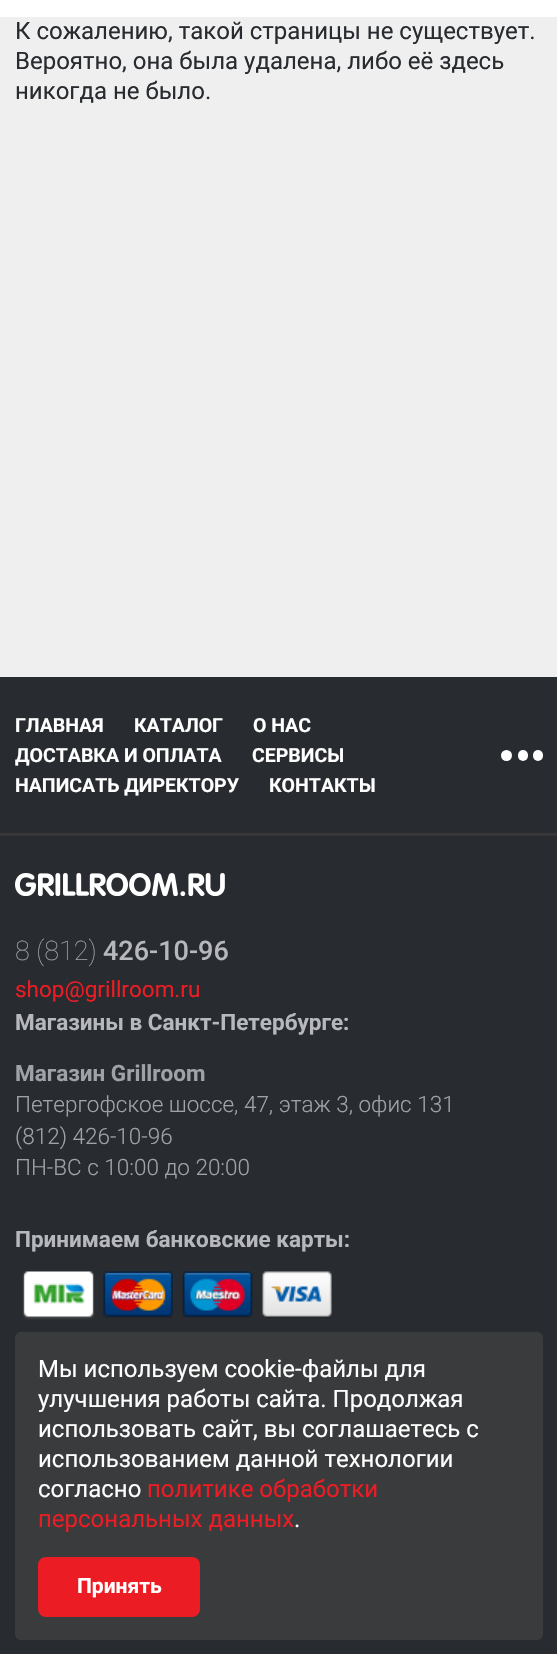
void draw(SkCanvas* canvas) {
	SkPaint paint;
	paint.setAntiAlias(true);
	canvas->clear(0xffefefef);
	paint.setColor(0xffffffff);
	canvas->drawRect(SkRect::MakeXYWH(0, 0, 557, 17), paint);
	SkFont f1(fontMgr->matchFamilyStyle("Roboto", SkFontStyle::Normal()), 24);
	f1.setSubpixel(true);
	paint.setColor(0xff282b2f);
	canvas->drawString("К сожалению, такой страницы не существует.", 15, 39, f1, paint);
	canvas->drawString("Вероятно, она была удалена, либо её здесь", 15, 69, f1, paint);
	canvas->drawString("никогда не было.", 15, 99, f1, paint);
	canvas->drawRect(SkRect::MakeXYWH(0, 677, 557, 156), paint);
	paint.setColor(0xff39393b);
	canvas->drawRect(SkRect::MakeXYWH(0, 833, 557, 1), paint);
	SkFont f2(fontMgr->matchFamilyStyle("Roboto", SkFontStyle::Bold()), 19.5);
	f2.setSubpixel(true);
	paint.setColor(0xffffffff);
	canvas->drawString("ГЛАВНАЯ", 15, 732, f2, paint);
	canvas->drawString("КАТАЛОГ", 134, 732, f2, paint);
	canvas->drawString("О НАС", 253, 732, f2, paint);
	canvas->drawString("ДОСТАВКА И ОПЛАТА", 15, 762, f2, paint);
	canvas->drawString("СЕРВИСЫ", 252, 762, f2, paint);
	canvas->drawString("НАПИСАТЬ ДИРЕКТОРУ", 15, 792, f2, paint);
	canvas->drawString("КОНТАКТЫ", 269, 792, f2, paint);
	canvas->drawCircle(506.5, 755.5, 5.5, paint);
	canvas->drawRoundRect(SkRect::MakeXYWH(518, 750, 10, 11), 5, 5, paint);
	canvas->drawRoundRect(SkRect::MakeXYWH(533, 750, 10, 11), 5, 5, paint);
	paint.setColor(0xff282b2f);
	canvas->drawRect(SkRect::MakeXYWH(0, 836, 557, 818), paint);
	paint.setColor(0xff363638);
	canvas->drawRect(SkRect::MakeXYWH(0, 834, 557, 2), paint);
	canvas->drawImageRect(SkImages::DeferredFromEncodedData(SkData::MakeFromFileName("img1.png")), SkRect::MakeXYWH(15, 873, 210, 23), SkSamplingOptions());
	SkFont f3(fontMgr->matchFamilyStyle("Roboto", SkFontStyle(100, SkFontStyle::kNormal_Width, SkFontStyle::kUpright_Slant)), 27);
	f3.setSubpixel(true);
	paint.setColor(0xff9fa2a7);
	canvas->drawString("8 (812)", 15, 960, f3, paint);
	SkFont f4(fontMgr->matchFamilyStyle("Roboto", SkFontStyle(500, SkFontStyle::kNormal_Width, SkFontStyle::kUpright_Slant)), 27);
	f4.setSubpixel(true);
	paint.setColor(0xffb6b8bd);
	canvas->drawString("426-10-96", 103, 960, f4, paint);
	SkFont f5(fontMgr->matchFamilyStyle("Roboto", SkFontStyle::Normal()), 22.5);
	f5.setSubpixel(true);
	paint.setColor(0xffec1c24);
	canvas->drawString("shop@grillroom.ru", 15, 997, f5, paint);
	SkFont f6(fontMgr->matchFamilyStyle("Roboto", SkFontStyle::Bold()), 22.5);
	f6.setSubpixel(true);
	paint.setColor(0xffb6b8bd);
	canvas->drawString("Магазины в Санкт-Петербурге:", 15, 1030, f6, paint);
	paint.setColor(0xff9fa2a7);
	canvas->drawString("Магазин Grillroom", 15, 1081, f6, paint);
	SkFont f7(fontMgr->matchFamilyStyle("Roboto", SkFontStyle(300, SkFontStyle::kNormal_Width, SkFontStyle::kUpright_Slant)), 22.5);
	f7.setSubpixel(true);
	canvas->drawString("Петергофское шоссе, 47, этаж 3, офис 131", 15, 1112, f7, paint);
	canvas->drawString("(812) 426-10-96", 15, 1144, f7, paint);
	canvas->drawString("ПН-ВС с 10:00 до 20:00", 15, 1175, f7, paint);
	paint.setColor(0xffb6b8bd);
	canvas->drawString("Принимаем банковские карты:", 15, 1247, f6, paint);
	canvas->drawImageRect(SkImages::DeferredFromEncodedData(SkData::MakeFromFileName("img2.png")), SkRect::MakeXYWH(22, 1271, 73, 49), SkSamplingOptions());
	canvas->drawImageRect(SkImages::DeferredFromEncodedData(SkData::MakeFromFileName("img3.png")), SkRect::MakeXYWH(103, 1271, 70, 47), SkSamplingOptions());
	canvas->drawImageRect(SkImages::DeferredFromEncodedData(SkData::MakeFromFileName("img4.png")), SkRect::MakeXYWH(182, 1271, 71, 47), SkSamplingOptions());
	canvas->drawImageRect(SkImages::DeferredFromEncodedData(SkData::MakeFromFileName("img5.png")), SkRect::MakeXYWH(262, 1271, 70, 47), SkSamplingOptions());
	paint.setColor(0xff3a3b3d);
	canvas->drawRoundRect(SkRect::MakeXYWH(15, 1332, 528, 308), 6, 6, paint);
	paint.setColor(0xffffffff);
	canvas->drawString("Мы используем cookie-файлы для", 38, 1377, f1, paint);
	canvas->drawString("улучшения работы сайта. Продолжая", 38, 1407, f1, paint);
	canvas->drawString("использовать сайт, вы соглашаетесь с", 38, 1437, f1, paint);
	canvas->drawString("использованием данной технологии", 38, 1467, f1, paint);
	canvas->drawString("согласно", 38, 1497, f1, paint);
	paint.setColor(0xffec1c24);
	canvas->drawString("политике обработки", 147, 1497, f1, paint);
	canvas->drawString("персональных данных", 38, 1527, f1, paint);
	paint.setColor(0xffffffff);
	canvas->drawString(".", 294, 1527, f1, paint);
	paint.setColor(0xffec1c24);
	canvas->drawRoundRect(SkRect::MakeXYWH(38, 1557, 162, 60), 8, 8, paint);
	SkFont f8(fontMgr->matchFamilyStyle("Roboto", SkFontStyle::Bold()), 21);
	f8.setSubpixel(true);
	paint.setColor(0xffffffff);
	canvas->drawString("Принять", 77, 1593, f8, paint);
}
